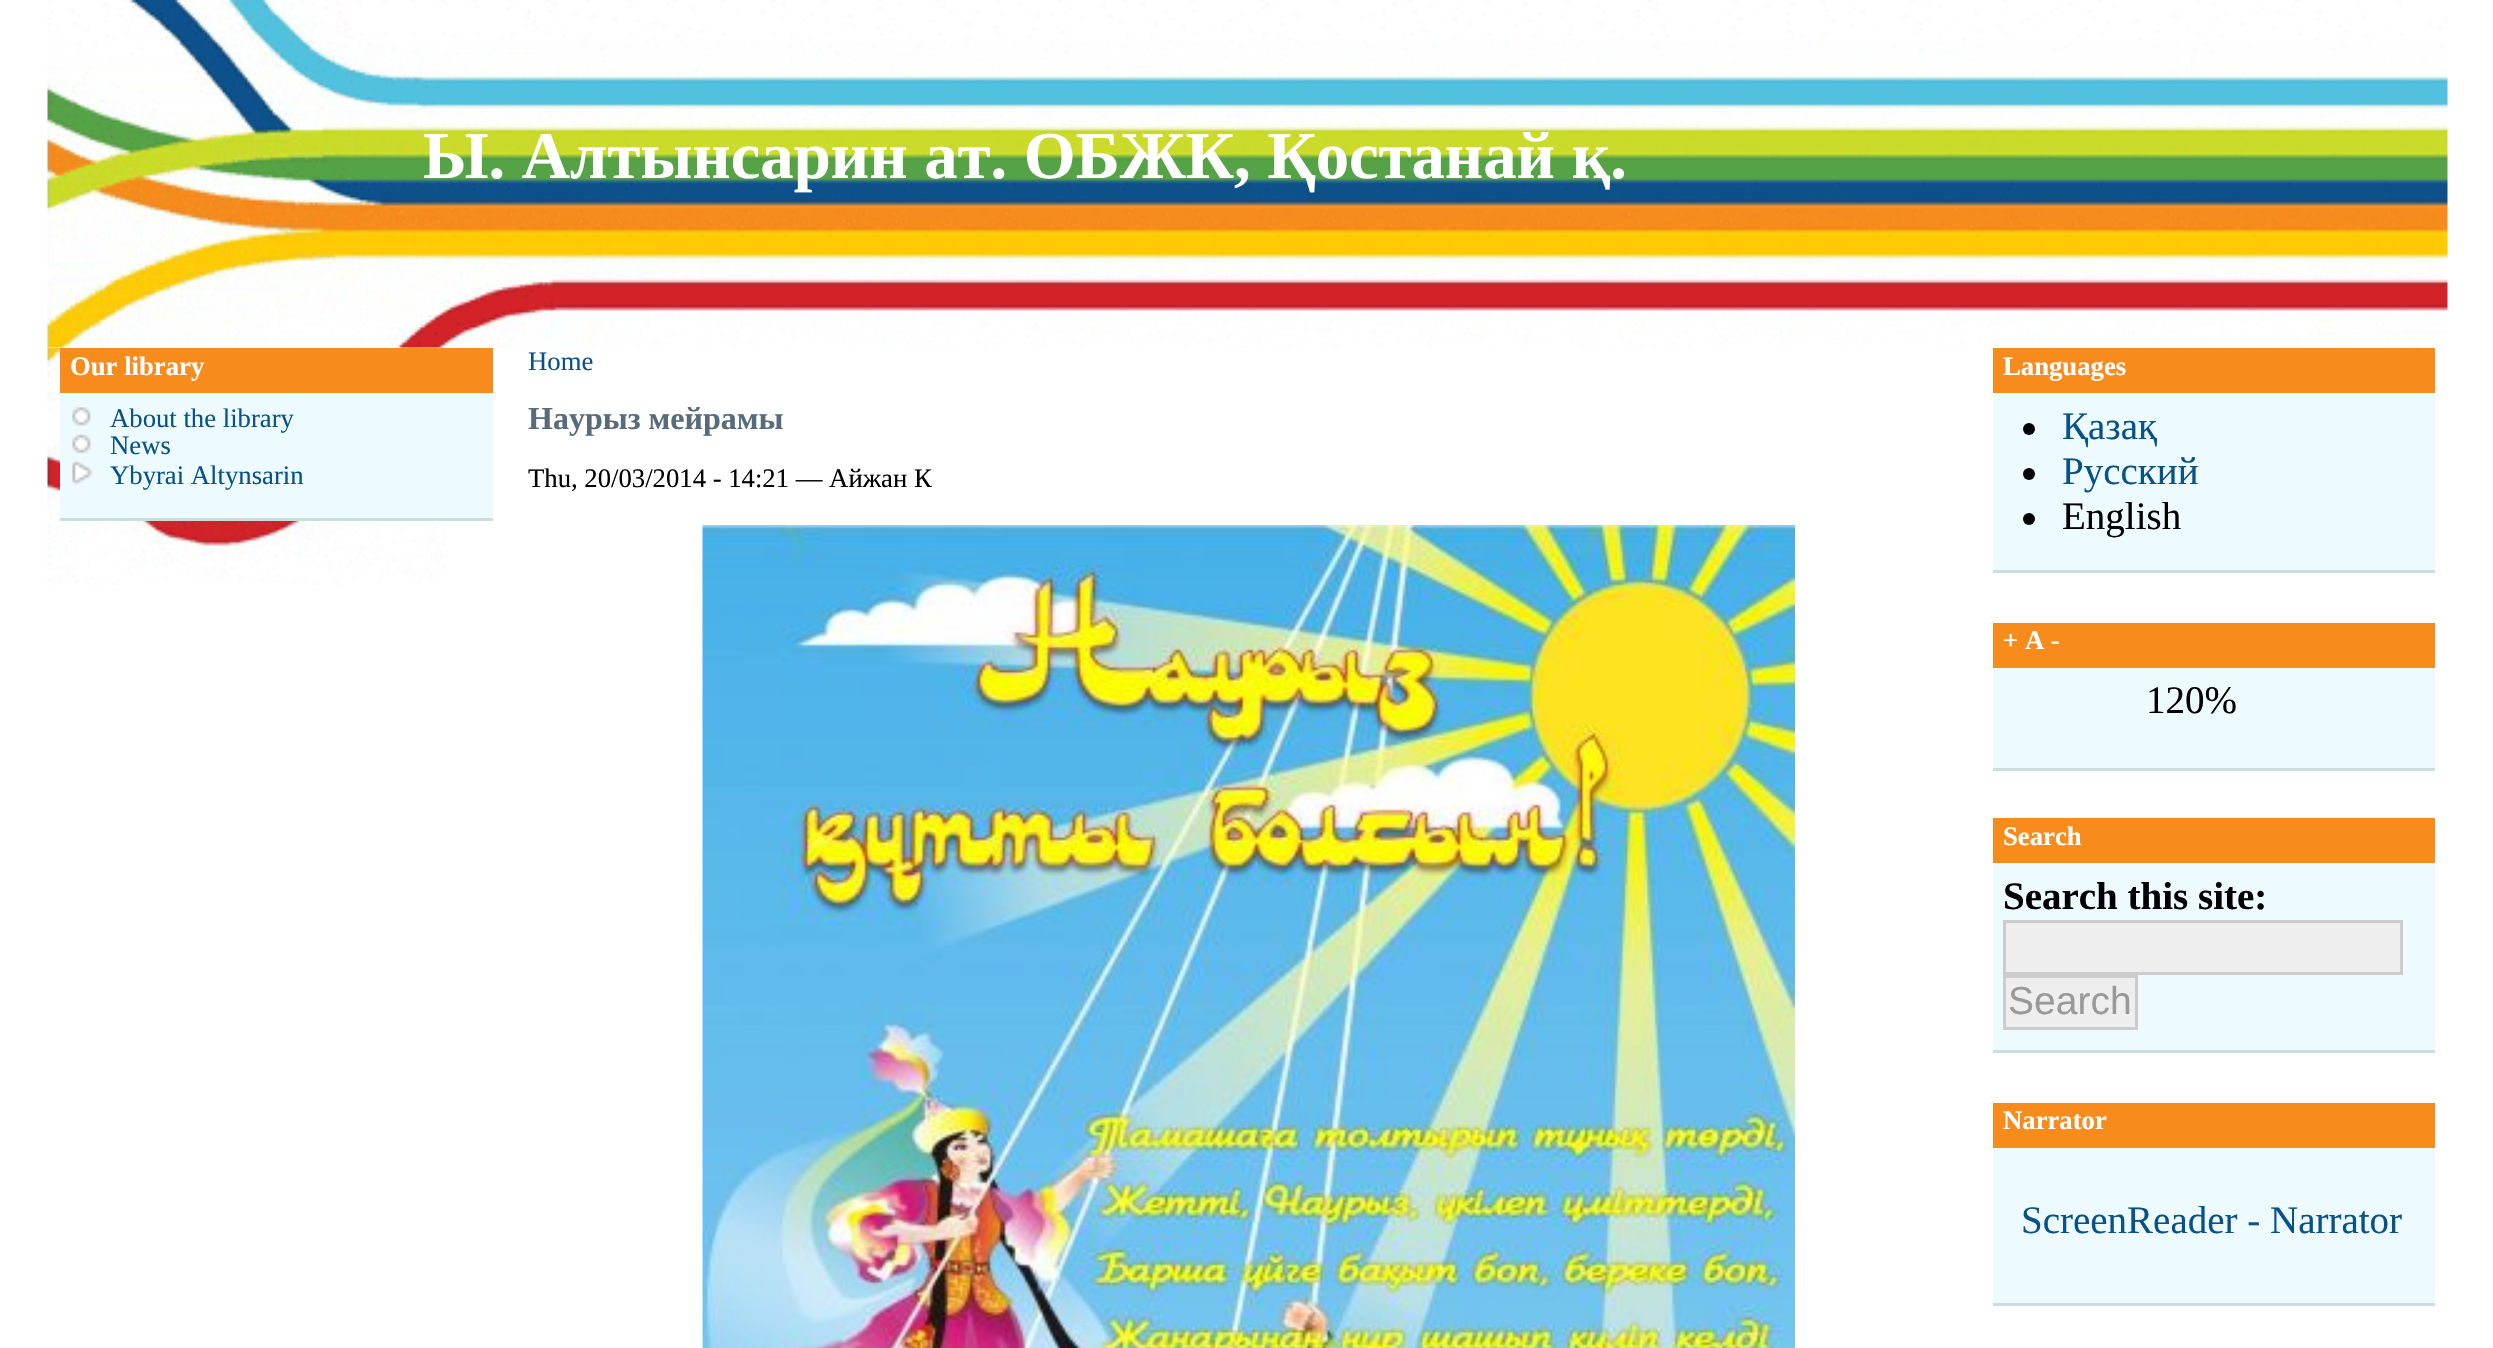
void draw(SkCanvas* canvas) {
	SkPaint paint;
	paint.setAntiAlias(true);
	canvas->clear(0xffffffff);
	canvas->drawImageRect(SkImages::DeferredFromEncodedData(SkData::MakeFromFileName("img2.png")), SkRect::MakeXYWH(47, 347, 401, 238), SkSamplingOptions());
	paint.setColor(0xffffffff);
	canvas->drawRect(SkRect::MakeXYWH(48, 347, 397, 1), paint);
	canvas->drawImageRect(SkImages::DeferredFromEncodedData(SkData::MakeFromFileName("img1.png")), SkRect::MakeXYWH(47, 0, 2401, 348), SkSamplingOptions());
	SkFont f1(fontMgr->matchFamilyStyle("Liberation Serif", SkFontStyle::Bold()), 66.7);
	f1.setSubpixel(true);
	canvas->drawString("Ы. Алтынсарин ат. ОБЖК, Қостанай қ.", 423, 178, f1, paint);
	paint.setColor(0xffedfaff);
	canvas->drawRect(SkRect::MakeXYWH(60, 393, 433, 125), paint);
	paint.setColor(0xffccdddd);
	canvas->drawRect(SkRect::MakeXYWH(60, 518, 433, 3), paint);
	paint.setColor(0xfff78b1c);
	canvas->drawRect(SkRect::MakeXYWH(60, 348, 433, 45), paint);
	SkFont f2(fontMgr->matchFamilyStyle("Liberation Serif", SkFontStyle::Bold()), 26.7);
	f2.setSubpixel(true);
	paint.setColor(0xffffffff);
	canvas->drawString("Our library", 70, 375, f2, paint);
	canvas->drawImageRect(SkImages::DeferredFromEncodedData(SkData::MakeFromFileName("img3.png")), SkRect::MakeXYWH(72, 407, 19, 19), SkSamplingOptions());
	SkFont f3(fontMgr->matchFamilyStyle("Liberation Serif", SkFontStyle::Normal()), 26.7);
	f3.setSubpixel(true);
	paint.setColor(0xff095287);
	canvas->drawString("About the library", 110, 427, f3, paint);
	canvas->drawImageRect(SkImages::DeferredFromEncodedData(SkData::MakeFromFileName("img4.png")), SkRect::MakeXYWH(72, 434, 19, 20), SkSamplingOptions());
	canvas->drawString("News", 110, 454, f3, paint);
	canvas->drawImageRect(SkImages::DeferredFromEncodedData(SkData::MakeFromFileName("img5.png")), SkRect::MakeXYWH(72, 460, 21, 25), SkSamplingOptions());
	canvas->drawString("Ybyrai Altynsarin", 110, 484, f3, paint);
	canvas->drawString("Home", 528, 370, f3, paint);
	SkFont f4(fontMgr->matchFamilyStyle("Liberation Serif", SkFontStyle::Bold()), 32);
	f4.setSubpixel(true);
	paint.setColor(0xff586b7a);
	canvas->drawString("Наурыз мейрамы", 528, 429, f4, paint);
	paint.setColor(0xff000000);
	canvas->drawString("Thu, 20/03/2014 - 14:21 — Айжан К", 528, 487, f3, paint);
	canvas->drawImageRect(SkImages::DeferredFromEncodedData(SkData::MakeFromFileName("img6.png")), SkRect::MakeXYWH(702, 525, 1093, 823), SkSamplingOptions());
	paint.setColor(0xffedfaff);
	canvas->drawRect(SkRect::MakeXYWH(1993, 393, 442, 177), paint);
	paint.setColor(0xffccdddd);
	canvas->drawRect(SkRect::MakeXYWH(1993, 570, 442, 3), paint);
	paint.setColor(0xfff78b1c);
	canvas->drawRect(SkRect::MakeXYWH(1993, 348, 442, 45), paint);
	paint.setColor(0xffffffff);
	canvas->drawString("Languages", 2003, 375, f2, paint);
	paint.setColor(0xff000000);
	canvas->drawCircle(2029, 429, 6, paint);
	SkFont f5(fontMgr->matchFamilyStyle("Liberation Serif", SkFontStyle::Normal()), 39);
	f5.setSubpixel(true);
	paint.setColor(0xff095287);
	canvas->drawString("Қазақ", 2062, 439, f5, paint);
	paint.setColor(0xff000000);
	canvas->drawCircle(2029, 474, 6, paint);
	paint.setColor(0xff095287);
	canvas->drawString("Русский", 2062, 484, f5, paint);
	paint.setColor(0xff000000);
	canvas->drawCircle(2029, 519, 6, paint);
	canvas->drawString("English", 2062, 529, f5, paint);
	paint.setColor(0xffedfaff);
	canvas->drawRect(SkRect::MakeXYWH(1993, 668, 442, 100), paint);
	paint.setColor(0xffccdddd);
	canvas->drawRect(SkRect::MakeXYWH(1993, 768, 442, 3), paint);
	paint.setColor(0xfff78b1c);
	canvas->drawRect(SkRect::MakeXYWH(1993, 623, 442, 45), paint);
	paint.setColor(0xffffffff);
	canvas->drawString("+ A -", 2003, 649, f2, paint);
	paint.setColor(0xff000000);
	canvas->drawString("120%", 2146, 713, f5, paint);
	paint.setColor(0xffedfaff);
	canvas->drawRect(SkRect::MakeXYWH(1993, 863, 442, 187), paint);
	paint.setColor(0xffccdddd);
	canvas->drawRect(SkRect::MakeXYWH(1993, 1050, 442, 3), paint);
	paint.setColor(0xfff78b1c);
	canvas->drawRect(SkRect::MakeXYWH(1993, 818, 442, 45), paint);
	paint.setColor(0xffffffff);
	canvas->drawString("Search", 2003, 845, f2, paint);
	SkFont f6(fontMgr->matchFamilyStyle("Liberation Serif", SkFontStyle::Bold()), 39);
	f6.setSubpixel(true);
	paint.setColor(0xff000000);
	canvas->drawString("Search this site:", 2003, 909, f6, paint);
	paint.setColor(0xffeeeeee);
	canvas->drawRect(SkRect::MakeXYWH(2004.5, 921.5, 397, 52), paint);
	paint.setStroke(true);
	paint.setStrokeWidth(3);
	paint.setColor(0xffcccccc);
	canvas->drawRect(SkRect::MakeXYWH(2004.5, 921.5, 397, 52), paint);
	paint.setStroke(false);
	paint.setColor(0xffeeeeee);
	canvas->drawRect(SkRect::MakeXYWH(2004.5, 976.5, 132, 52), paint);
	paint.setStroke(true);
	paint.setColor(0xffcccccc);
	canvas->drawRect(SkRect::MakeXYWH(2004.5, 976.5, 132, 52), paint);
	SkFont f7(fontMgr->matchFamilyStyle("Liberation Sans", SkFontStyle::Normal()), 39);
	f7.setSubpixel(true);
	paint.setStroke(false);
	paint.setColor(0xff999999);
	canvas->drawString("Search", 2008, 1014, f7, paint);
	paint.setColor(0xffedfaff);
	canvas->drawRect(SkRect::MakeXYWH(1993, 1148, 442, 155), paint);
	paint.setColor(0xffccdddd);
	canvas->drawRect(SkRect::MakeXYWH(1993, 1303, 442, 3), paint);
	paint.setColor(0xfff78b1c);
	canvas->drawRect(SkRect::MakeXYWH(1993, 1103, 442, 45), paint);
	paint.setColor(0xffffffff);
	canvas->drawString("Narrator", 2003, 1129, f2, paint);
	paint.setColor(0xff095287);
	canvas->drawString("ScreenReader - Narrator", 2021, 1233, f5, paint);
}
